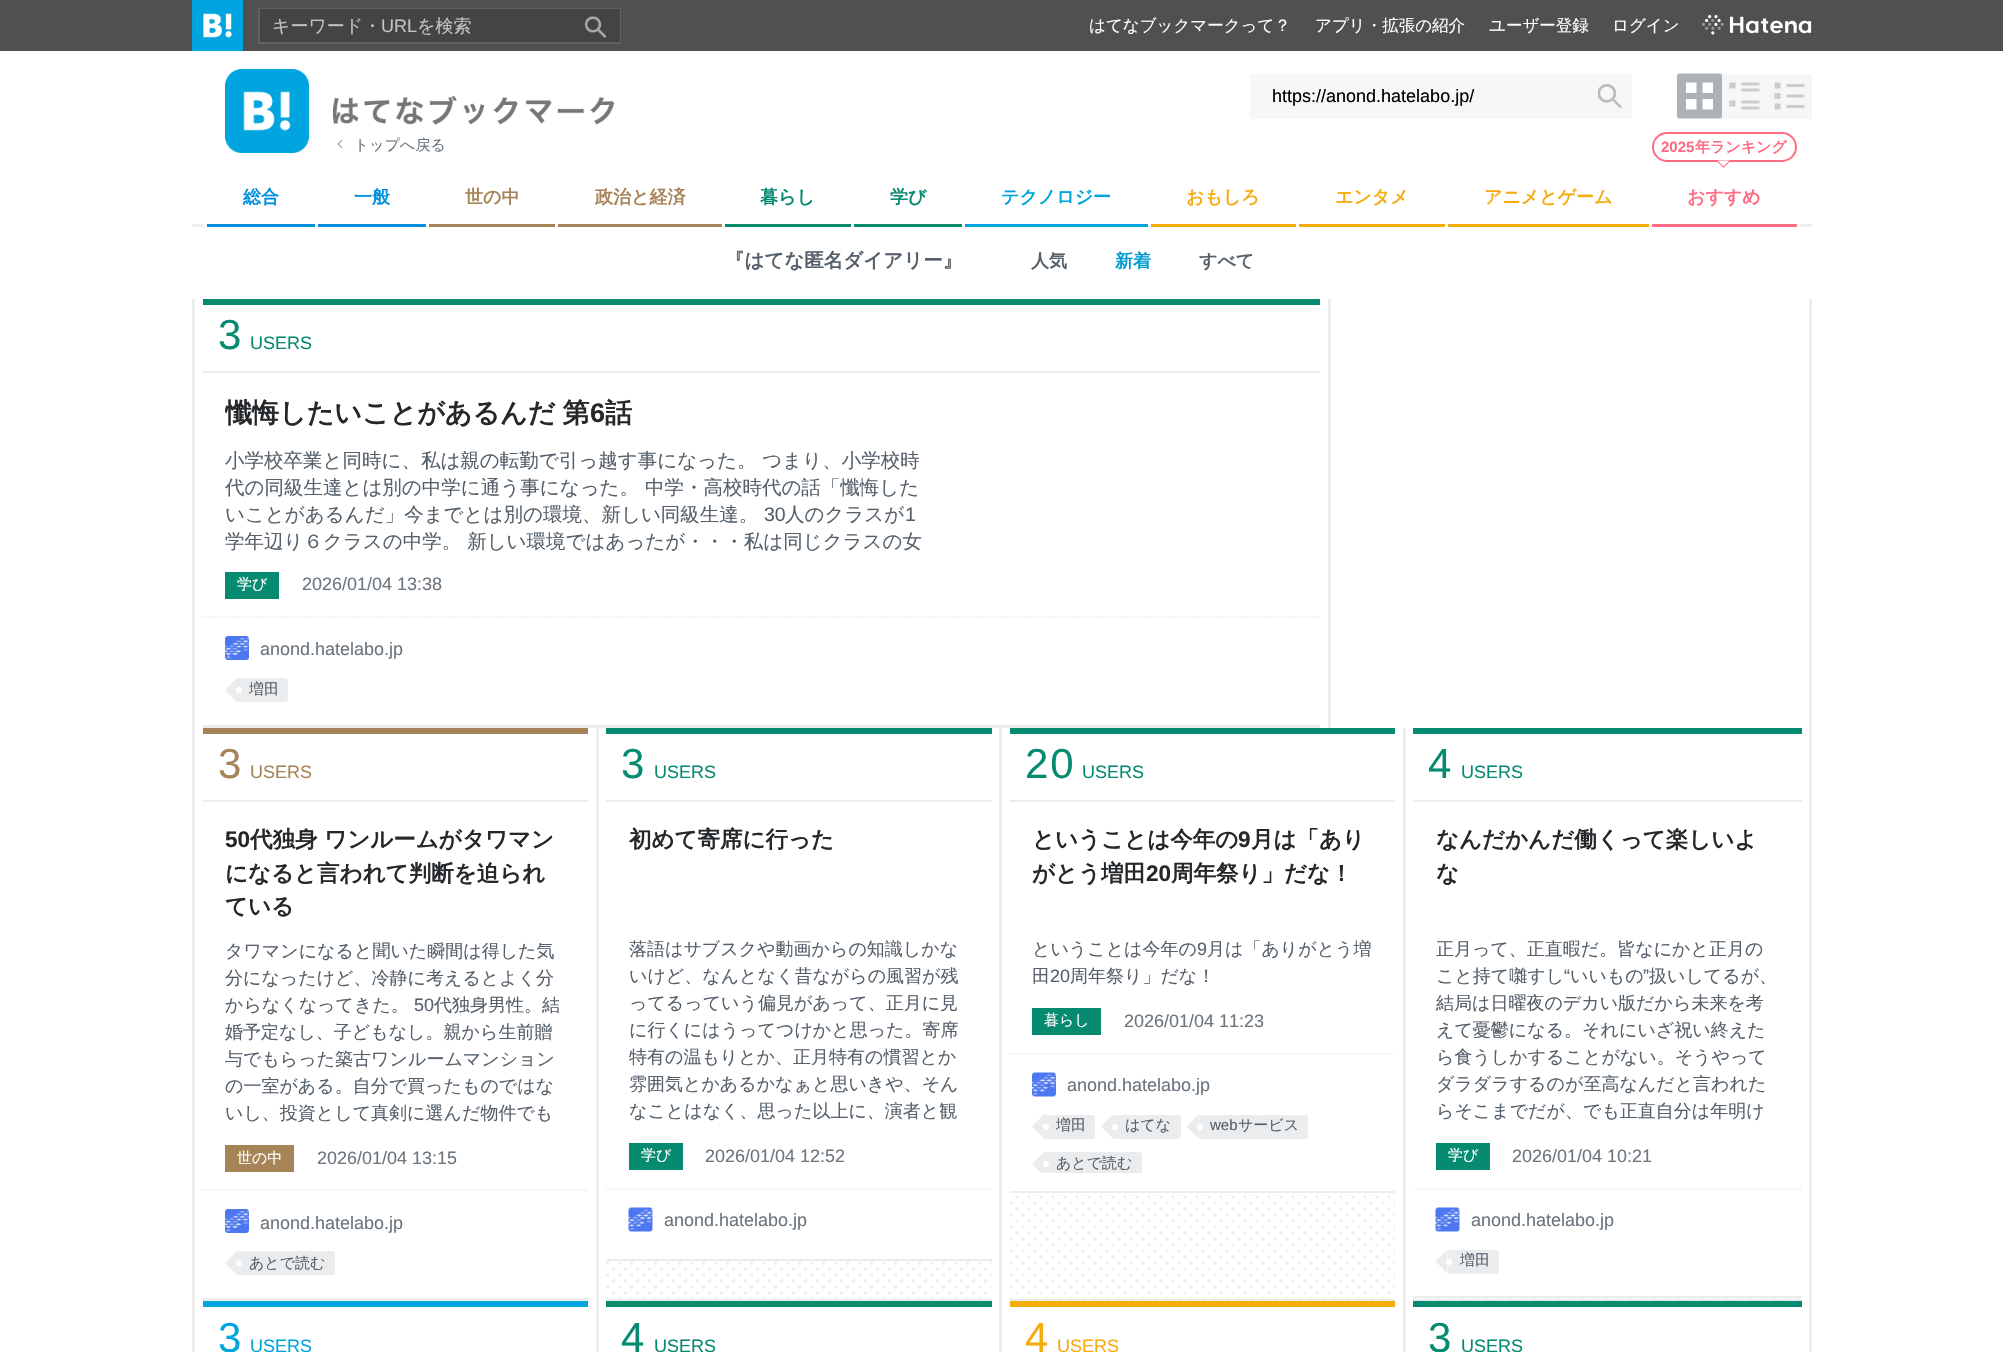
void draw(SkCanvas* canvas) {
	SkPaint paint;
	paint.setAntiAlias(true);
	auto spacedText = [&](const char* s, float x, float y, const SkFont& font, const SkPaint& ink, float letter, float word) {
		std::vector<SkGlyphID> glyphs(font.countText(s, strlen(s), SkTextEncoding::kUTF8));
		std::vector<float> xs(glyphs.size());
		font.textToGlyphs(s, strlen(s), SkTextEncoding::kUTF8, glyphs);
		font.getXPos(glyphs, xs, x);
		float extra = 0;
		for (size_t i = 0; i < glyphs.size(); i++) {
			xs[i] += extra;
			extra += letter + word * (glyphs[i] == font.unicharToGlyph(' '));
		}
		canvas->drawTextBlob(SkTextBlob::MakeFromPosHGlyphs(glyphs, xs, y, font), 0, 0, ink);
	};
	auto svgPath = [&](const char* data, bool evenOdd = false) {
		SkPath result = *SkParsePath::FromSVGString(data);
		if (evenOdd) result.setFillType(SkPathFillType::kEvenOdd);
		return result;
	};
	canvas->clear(0xffffffff);
	paint.setColor(0xff505050);
	canvas->drawRect(SkRect::MakeXYWH(0, 0, 2003, 51), paint);
	canvas->drawImageRect(SkImages::DeferredFromEncodedData(SkData::MakeFromFileName("img1.png")), SkRect::MakeXYWH(192, 0, 51, 51), SkSamplingOptions());
	paint.setStroke(true);
	paint.setStrokeWidth(2);
	paint.setColor(0xff606060);
	canvas->drawRect(SkRect::MakeXYWH(259, 9, 361, 34), paint);
	paint.setStroke(false);
	paint.setColor(0xff444444);
	canvas->drawRect(SkRect::MakeXYWH(260, 9, 360, 33), paint);
	SkFont f1(fontMgr->matchFamilyStyle("WenQuanYi Zen Hei", SkFontStyle(500, SkFontStyle::kNormal_Width, SkFontStyle::kUpright_Slant)), 18);
	f1.setSubpixel(true);
	paint.setColor(0xffc2c2c2);
	canvas->drawString("キーワード・", 272, 32, f1, paint);
	SkFont f2(fontMgr->matchFamilyStyle("Liberation Sans", SkFontStyle::Normal()), 18);
	f2.setSubpixel(true);
	canvas->drawString("URL", 381, 32, f2, paint);
	canvas->drawString("を検索", 417, 32, f1, paint);
	canvas->drawImageRect(SkImages::DeferredFromEncodedData(SkData::MakeFromFileName("img2.png")), SkRect::MakeXYWH(585, 16, 21, 22), SkSamplingOptions());
	SkFont f3(fontMgr->matchFamilyStyle("WenQuanYi Zen Hei", SkFontStyle(500, SkFontStyle::kNormal_Width, SkFontStyle::kUpright_Slant)), 16.5);
	f3.setSubpixel(true);
	paint.setColor(0xffffffff);
	canvas->drawString("はてなブックマークって？", 1089, 31, f3, paint);
	canvas->drawString("アプリ・拡張の紹介", 1315, 31, f3, paint);
	canvas->drawString("ユーザー登録", 1489, 31, f3, paint);
	canvas->drawString("ログイン", 1612, 31, f3, paint);
	canvas->drawImageRect(SkImages::DeferredFromEncodedData(SkData::MakeFromFileName("img3.png")), SkRect::MakeXYWH(1702, 15, 110, 20), SkSamplingOptions());
	paint.setColor(0xfff6f7f8);
	canvas->drawRect(SkRect::MakeXYWH(1250, 74, 382, 45), paint);
	paint.setColor(0xff000000);
	canvas->drawString("https://anond.hatelabo.jp/", 1272, 102, f2, paint);
	canvas->drawImageRect(SkImages::DeferredFromEncodedData(SkData::MakeFromFileName("img4.png")), SkRect::MakeXYWH(1598, 84, 24, 24), SkSamplingOptions());
	paint.setColor(0xfff6f6f6);
	canvas->drawRect(SkRect::MakeXYWH(1677, 74, 135, 45), paint);
	canvas->drawImageRect(SkImages::DeferredFromEncodedData(SkData::MakeFromFileName("img5.png")), SkRect::MakeXYWH(1677, 73, 45, 46), SkSamplingOptions());
	canvas->drawImageRect(SkImages::DeferredFromEncodedData(SkData::MakeFromFileName("img6.png")), SkRect::MakeXYWH(1729, 82, 31, 28), SkSamplingOptions());
	canvas->drawImageRect(SkImages::DeferredFromEncodedData(SkData::MakeFromFileName("img7.png")), SkRect::MakeXYWH(1774, 82, 31, 28), SkSamplingOptions());
	canvas->drawImageRect(SkImages::DeferredFromEncodedData(SkData::MakeFromFileName("img8.png")), SkRect::MakeXYWH(225, 69, 84, 84), SkSamplingOptions());
	canvas->drawImageRect(SkImages::DeferredFromEncodedData(SkData::MakeFromFileName("img9.png")), SkRect::MakeXYWH(333, 96, 282, 29), SkSamplingOptions());
	paint.setColor(0xff999999);
	canvas->drawPath(svgPath("M342 139.5V148.5L337.5 144Z"), paint);
	SkFont f4(fontMgr->matchFamilyStyle("WenQuanYi Zen Hei", SkFontStyle(500, SkFontStyle::kNormal_Width, SkFontStyle::kUpright_Slant)), 15);
	f4.setSubpixel(true);
	paint.setColor(0xff6b757e);
	canvas->drawString("トップへ戻る", 354, 150, f4, paint);
	paint.setColor(0xffffffff);
	canvas->drawPath(svgPath("M343.5 139.5V148.5L339 144Z"), paint);
	paint.setColor(0xff008fde);
	canvas->drawRect(SkRect::MakeXYWH(207, 224, 108, 3), paint);
	SkFont f5(fontMgr->matchFamilyStyle("WenQuanYi Zen Hei", SkFontStyle::Bold()), 18);
	f5.setSubpixel(true);
	canvas->drawString("総合", 243, 203, f5, paint);
	canvas->drawRect(SkRect::MakeXYWH(318, 224, 108, 3), paint);
	canvas->drawString("一般", 354, 203, f5, paint);
	paint.setColor(0xffa78358);
	canvas->drawRect(SkRect::MakeXYWH(429, 224, 126, 3), paint);
	canvas->drawString("世の中", 465, 203, f5, paint);
	canvas->drawRect(SkRect::MakeXYWH(558, 224, 164, 3), paint);
	canvas->drawString("政治と経済", 595, 203, f5, paint);
	paint.setColor(0xff068b71);
	canvas->drawRect(SkRect::MakeXYWH(725, 224, 126, 3), paint);
	canvas->drawString("暮らし", 760, 203, f5, paint);
	canvas->drawRect(SkRect::MakeXYWH(854, 224, 108, 3), paint);
	canvas->drawString("学び", 890, 203, f5, paint);
	paint.setColor(0xff00a5de);
	canvas->drawRect(SkRect::MakeXYWH(965, 224, 183, 3), paint);
	canvas->drawString("テクノロジー", 1001, 203, f5, paint);
	paint.setColor(0xfff5ac0f);
	canvas->drawRect(SkRect::MakeXYWH(1151, 224, 145, 3), paint);
	canvas->drawString("おもしろ", 1186, 203, f5, paint);
	canvas->drawRect(SkRect::MakeXYWH(1299, 224, 146, 3), paint);
	canvas->drawString("エンタメ", 1335, 203, f5, paint);
	canvas->drawRect(SkRect::MakeXYWH(1448, 224, 201, 3), paint);
	canvas->drawString("アニメとゲーム", 1484, 203, f5, paint);
	paint.setStroke(true);
	paint.setColor(0xffff6b83);
	canvas->drawRoundRect(SkRect::MakeXYWH(1653, 133, 143, 28), 14, 14, paint);
	SkFont f6(fontMgr->matchFamilyStyle("Liberation Sans", SkFontStyle::Bold()), 15);
	f6.setSubpixel(true);
	paint.setStroke(false);
	canvas->drawString("2025", 1661, 152, f6, paint);
	SkFont f7(fontMgr->matchFamilyStyle("WenQuanYi Zen Hei", SkFontStyle::Bold()), 15);
	f7.setSubpixel(true);
	canvas->drawString("年ランキング", 1695, 152, f7, paint);
	canvas->drawPath(svgPath("M1717.5 162H1729.5L1723.5 168Z"), paint);
	paint.setColor(0xffffffff);
	canvas->drawPath(svgPath("M1717.5 160.5H1729.5L1723.5 166.5Z"), paint);
	paint.setColor(0xffff6b83);
	canvas->drawRect(SkRect::MakeXYWH(1652, 224, 145, 3), paint);
	canvas->drawString("おすすめ", 1687, 203, f5, paint);
	paint.setColor(0xffeeeeee);
	canvas->drawRect(SkRect::MakeXYWH(192, 224, 12, 3), paint);
	canvas->drawRect(SkRect::MakeXYWH(1800, 224, 12, 3), paint);
	SkFont f8(fontMgr->matchFamilyStyle("WenQuanYi Zen Hei", SkFontStyle::Bold()), 19.5);
	f8.setSubpixel(true);
	paint.setColor(0xff55606a);
	canvas->drawString("『はてな匿名ダイアリー』", 725, 267, f8, paint);
	canvas->drawString("人気", 1031, 267, f5, paint);
	paint.setColor(0xff009ad0);
	canvas->drawString("新着", 1115, 267, f5, paint);
	paint.setColor(0xff55606a);
	canvas->drawString("すべて", 1199, 267, f5, paint);
	paint.setColor(0xffececec);
	canvas->drawRect(SkRect::MakeXYWH(1809, 299, 3, 1053), paint);
	canvas->drawRect(SkRect::MakeXYWH(192, 299, 3, 1053), paint);
	canvas->drawRect(SkRect::MakeXYWH(1328, 299, 3, 429), paint);
	paint.setColor(0xff068b71);
	canvas->drawRect(SkRect::MakeXYWH(203, 299, 1117, 6), paint);
	paint.setColor(0xffececec);
	canvas->drawRect(SkRect::MakeXYWH(203, 725, 1117, 3), paint);
	SkFont f9(fontMgr->matchFamilyStyle("Liberation Sans", SkFontStyle::Normal()), 42);
	f9.setSubpixel(true);
	paint.setColor(0xff068b71);
	spacedText("3", 218, 349, f9, paint, 2, 0);
	canvas->drawString("USERS", 250, 349, f2, paint);
	paint.setColor(0xffececec);
	canvas->drawRect(SkRect::MakeXYWH(203, 371, 1117, 2), paint);
	canvas->save();
	canvas->clipRect(SkRect::MakeXYWH(225, 395, 693, 40));
	SkFont f10(fontMgr->matchFamilyStyle("WenQuanYi Zen Hei", SkFontStyle::Bold()), 27);
	f10.setSubpixel(true);
	paint.setColor(0xff25282b);
	spacedText("懺悔したいことがあるんだ 第", 225, 422, f10, paint, 0, -1);
	canvas->restore();
	SkFont f11(fontMgr->matchFamilyStyle("Liberation Sans", SkFontStyle::Bold()), 27);
	f11.setSubpixel(true);
	canvas->drawString("6", 590, 422, f11, paint);
	canvas->drawString("話", 605, 422, f10, paint);
	SkFont f12(fontMgr->matchFamilyStyle("WenQuanYi Zen Hei", SkFontStyle(500, SkFontStyle::kNormal_Width, SkFontStyle::kUpright_Slant)), 19.5);
	f12.setSubpixel(true);
	paint.setColor(0xff55606a);
	canvas->drawString("小学校卒業と同時に、私は親の転勤で引っ越す事になった。 つまり、小学校時", 225, 467, f12, paint);
	canvas->drawString("代の同級生達とは別の中学に通う事になった。 中学・高校時代の話「懺悔した", 225, 494, f12, paint);
	canvas->drawString("いことがあるんだ」今までとは別の環境、新しい同級生達。", 225, 521, f12, paint);
	SkFont f13(fontMgr->matchFamilyStyle("Liberation Sans", SkFontStyle::Normal()), 19.5);
	f13.setSubpixel(true);
	canvas->drawString("30", 764, 521, f13, paint);
	canvas->drawString("人のクラスが", 785, 521, f12, paint);
	canvas->drawString("1", 905, 521, f13, paint);
	canvas->drawString("学年辺り６クラスの中学。 新しい環境ではあったが・・・私は同じクラスの女", 225, 548, f12, paint);
	paint.setStroke(true);
	paint.setStrokeWidth(1.5);
	paint.setColor(0xffececec);
	paint.setPathEffect(SkDashPathEffect::Make({{1.5f, 1.5f}}, 0));
	canvas->drawPath(svgPath("M202.5 617H1320"), paint);
	paint.setPathEffect(nullptr);
	paint.setStroke(false);
	paint.setColor(0xff068b71);
	canvas->drawRect(SkRect::MakeXYWH(225, 572, 54, 27), paint);
	paint.setColor(0xffffffff);
	canvas->drawString("学び", 237, 589, f4, paint);
	paint.setColor(0xff6b757e);
	canvas->drawString("2026/01/04 13:38", 302, 590, f2, paint);
	canvas->drawImageRect(SkImages::DeferredFromEncodedData(SkData::MakeFromFileName("img10.png")), SkRect::MakeXYWH(225, 636, 24, 24), SkSamplingOptions());
	canvas->drawString("anond.hatelabo.jp", 260, 655, f2, paint);
	paint.setColor(0xffebeced);
	canvas->drawPath(svgPath("M237 678H285C286.5 678 288 679.5 288 681V699C288 700.5 286.5 702 285 702H237Z"), paint);
	canvas->drawPath(svgPath("M237 678V702L225 690Z"), paint);
	paint.setColor(0xffffffff);
	canvas->drawCircle(239, 690, 3, paint);
	paint.setColor(0xff55606a);
	canvas->drawString("増田", 249, 694, f4, paint);
	paint.setColor(0xffececec);
	canvas->drawRect(SkRect::MakeXYWH(596, 728, 3, 624), paint);
	paint.setColor(0xffa78358);
	canvas->drawRect(SkRect::MakeXYWH(203, 728, 385, 6), paint);
	paint.setColor(0xffececec);
	canvas->drawRect(SkRect::MakeXYWH(203, 1298, 385, 3), paint);
	paint.setColor(0xffa78358);
	spacedText("3", 218, 778, f9, paint, 2, 0);
	canvas->drawString("USERS", 250, 778, f2, paint);
	paint.setColor(0xffececec);
	canvas->drawRect(SkRect::MakeXYWH(203, 800, 385, 2), paint);
	SkFont f14(fontMgr->matchFamilyStyle("Liberation Sans", SkFontStyle::Bold()), 22.5);
	f14.setSubpixel(true);
	paint.setColor(0xff25282b);
	canvas->drawString("50", 225, 847, f14, paint);
	SkFont f15(fontMgr->matchFamilyStyle("WenQuanYi Zen Hei", SkFontStyle::Bold()), 22.5);
	f15.setSubpixel(true);
	canvas->drawString("代独身 ワンルームがタワマン", 250, 847, f15, paint);
	canvas->drawString("になると言われて判断を迫られ", 225, 881, f15, paint);
	canvas->drawString("ている", 225, 914, f15, paint);
	paint.setColor(0xff55606a);
	canvas->drawString("タワマンになると聞いた瞬間は得した気", 225, 957, f1, paint);
	canvas->drawString("分になったけど、冷静に考えるとよく分", 225, 984, f1, paint);
	canvas->drawString("からなくなってきた。", 225, 1011, f1, paint);
	canvas->drawString("50", 414, 1011, f2, paint);
	canvas->drawString("代独身男性。結", 434, 1011, f1, paint);
	canvas->drawString("婚予定なし、子どもなし。親から生前贈", 225, 1038, f1, paint);
	canvas->drawString("与でもらった築古ワンルームマンション", 225, 1065, f1, paint);
	canvas->drawString("の一室がある。自分で買ったものではな", 225, 1092, f1, paint);
	canvas->drawString("いし、投資として真剣に選んだ物件でも", 225, 1119, f1, paint);
	paint.setStroke(true);
	paint.setColor(0xffececec);
	paint.setPathEffect(SkDashPathEffect::Make({{1.5f, 1.5f}}, 0));
	canvas->drawPath(svgPath("M202.5 1190H588"), paint);
	paint.setPathEffect(nullptr);
	paint.setStroke(false);
	paint.setColor(0xffa78358);
	canvas->drawRect(SkRect::MakeXYWH(225, 1145, 69, 27), paint);
	paint.setColor(0xffffffff);
	canvas->drawString("世の中", 237, 1163, f4, paint);
	paint.setColor(0xff6b757e);
	canvas->drawString("2026/01/04 13:15", 317, 1164, f2, paint);
	canvas->drawImageRect(SkImages::DeferredFromEncodedData(SkData::MakeFromFileName("img10.png")), SkRect::MakeXYWH(225, 1209, 24, 24), SkSamplingOptions());
	canvas->drawString("anond.hatelabo.jp", 260, 1229, f2, paint);
	paint.setColor(0xffebeced);
	canvas->drawPath(svgPath("M237 1251H332C333.5 1251 335 1252.5 335 1254V1272C335 1273.5 333.5 1275 332 1275H237Z"), paint);
	canvas->drawPath(svgPath("M237 1251V1275L225 1263Z"), paint);
	paint.setColor(0xffffffff);
	canvas->drawCircle(239, 1263, 3, paint);
	paint.setColor(0xff55606a);
	canvas->drawString("あとで読む", 249, 1268, f4, paint);
	paint.setColor(0xffececec);
	canvas->drawRect(SkRect::MakeXYWH(999, 728, 3, 624), paint);
	canvas->drawImageRect(SkImages::DeferredFromEncodedData(SkData::MakeFromFileName("img11.png")), SkRect::MakeXYWH(606, 1261, 386, 38), SkSamplingOptions());
	paint.setColor(0xff068b71);
	canvas->drawRect(SkRect::MakeXYWH(606, 728, 386, 6), paint);
	paint.setColor(0xffececec);
	canvas->drawRect(SkRect::MakeXYWH(606, 1299, 386, 2), paint);
	canvas->drawRect(SkRect::MakeXYWH(606, 1259, 386, 2), paint);
	paint.setColor(0xff068b71);
	spacedText("3", 621, 778, f9, paint, 2, 0);
	canvas->drawString("USERS", 654, 778, f2, paint);
	paint.setColor(0xffececec);
	canvas->drawRect(SkRect::MakeXYWH(606, 800, 386, 2), paint);
	paint.setColor(0xff25282b);
	canvas->drawString("初めて寄席に行った", 629, 847, f15, paint);
	paint.setColor(0xff55606a);
	canvas->drawString("落語はサブスクや動画からの知識しかな", 629, 955, f1, paint);
	canvas->drawString("いけど、なんとなく昔ながらの風習が残", 629, 982, f1, paint);
	canvas->drawString("ってるっていう偏見があって、正月に見", 629, 1009, f1, paint);
	canvas->drawString("に行くにはうってつけかと思った。寄席", 629, 1036, f1, paint);
	canvas->save();
	canvas->clipRect(SkRect::MakeXYWH(629, 936, 340, 189));
	canvas->drawString("特有の温もりとか、正月特有の慣習とか", 629, 1063, f1, paint);
	canvas->restore();
	canvas->drawString("雰囲気とかあるかなぁと思いきや、そん", 629, 1090, f1, paint);
	canvas->drawString("なことはなく、思った以上に、演者と観", 629, 1117, f1, paint);
	paint.setStroke(true);
	paint.setColor(0xffececec);
	paint.setPathEffect(SkDashPathEffect::Make({{1.5f, 1.5f}}, 0));
	canvas->drawPath(svgPath("M606 1189H991.5"), paint);
	paint.setPathEffect(nullptr);
	paint.setStroke(false);
	paint.setColor(0xff068b71);
	canvas->drawRect(SkRect::MakeXYWH(629, 1143, 54, 27), paint);
	paint.setColor(0xffffffff);
	canvas->drawString("学び", 641, 1160, f4, paint);
	paint.setColor(0xff6b757e);
	canvas->drawString("2026/01/04 12:52", 705, 1162, f2, paint);
	canvas->drawImageRect(SkImages::DeferredFromEncodedData(SkData::MakeFromFileName("img12.png")), SkRect::MakeXYWH(628, 1207, 25, 25), SkSamplingOptions());
	canvas->drawString("anond.hatelabo.jp", 664, 1226, f2, paint);
	paint.setColor(0xffececec);
	canvas->drawRect(SkRect::MakeXYWH(1403, 728, 3, 624), paint);
	canvas->drawImageRect(SkImages::DeferredFromEncodedData(SkData::MakeFromFileName("img13.png")), SkRect::MakeXYWH(1010, 1195, 385, 104), SkSamplingOptions());
	paint.setColor(0xff068b71);
	canvas->drawRect(SkRect::MakeXYWH(1010, 728, 385, 6), paint);
	paint.setColor(0xffececec);
	canvas->drawRect(SkRect::MakeXYWH(1010, 1299, 385, 2), paint);
	canvas->drawRect(SkRect::MakeXYWH(1010, 1191, 385, 2), paint);
	paint.setColor(0xff068b71);
	spacedText("20", 1025, 778, f9, paint, 2, 0);
	canvas->drawString("USERS", 1082, 778, f2, paint);
	paint.setColor(0xffececec);
	canvas->drawRect(SkRect::MakeXYWH(1010, 800, 385, 2), paint);
	paint.setColor(0xff25282b);
	canvas->drawString("ということは今年の", 1032, 847, f15, paint);
	canvas->drawString("9", 1238, 847, f14, paint);
	canvas->drawString("月は「あり", 1251, 847, f15, paint);
	canvas->drawString("がとう増田", 1032, 881, f15, paint);
	canvas->drawString("20", 1146, 881, f14, paint);
	canvas->drawString("周年祭り」だな！", 1171, 881, f15, paint);
	paint.setColor(0xff55606a);
	canvas->drawString("ということは今年の", 1032, 955, f1, paint);
	canvas->drawString("9", 1197, 955, f2, paint);
	canvas->drawString("月は「ありがとう増", 1207, 955, f1, paint);
	canvas->drawString("田", 1032, 982, f1, paint);
	canvas->drawString("20", 1050, 982, f2, paint);
	canvas->drawString("周年祭り」だな！", 1070, 982, f1, paint);
	paint.setStroke(true);
	paint.setColor(0xffececec);
	paint.setPathEffect(SkDashPathEffect::Make({{1.5f, 1.5f}}, 0));
	canvas->drawPath(svgPath("M1009.5 1054H1395"), paint);
	paint.setPathEffect(nullptr);
	paint.setStroke(false);
	paint.setColor(0xff068b71);
	canvas->drawRect(SkRect::MakeXYWH(1032, 1008, 69, 27), paint);
	paint.setColor(0xffffffff);
	canvas->drawString("暮らし", 1044, 1025, f4, paint);
	paint.setColor(0xff6b757e);
	canvas->drawString("2026/01/04 11:23", 1124, 1027, f2, paint);
	canvas->drawImageRect(SkImages::DeferredFromEncodedData(SkData::MakeFromFileName("img14.png")), SkRect::MakeXYWH(1032, 1072, 24, 25), SkSamplingOptions());
	canvas->drawString("anond.hatelabo.jp", 1067, 1091, f2, paint);
	paint.setColor(0xffebeced);
	canvas->drawPath(svgPath("M1044 1115H1092C1093.5 1115 1095 1116.5 1095 1118V1136C1095 1137.5 1093.5 1139 1092 1139H1044Z"), paint);
	canvas->drawPath(svgPath("M1044 1114.5V1138.5L1032 1126.5Z"), paint);
	paint.setColor(0xffffffff);
	canvas->drawCircle(1046, 1127, 3, paint);
	paint.setColor(0xff55606a);
	canvas->drawString("増田", 1056, 1130, f4, paint);
	paint.setColor(0xffebeced);
	canvas->drawPath(svgPath("M1113 1115H1178C1179.5 1115 1181 1116.5 1181 1118V1136C1181 1137.5 1179.5 1139 1178 1139H1113Z"), paint);
	canvas->drawPath(svgPath("M1113 1114.5V1138.5L1101 1126.5Z"), paint);
	paint.setColor(0xffffffff);
	canvas->drawCircle(1115, 1127, 3, paint);
	paint.setColor(0xff55606a);
	canvas->drawString("はてな", 1125, 1130, f4, paint);
	paint.setColor(0xffebeced);
	canvas->drawPath(svgPath("M1199 1115H1305C1306.5 1115 1308 1116.5 1308 1118V1136C1308 1137.5 1306.5 1139 1305 1139H1199Z"), paint);
	canvas->drawPath(svgPath("M1198.5 1114.5V1138.5L1186.5 1126.5Z"), paint);
	paint.setColor(0xffffffff);
	canvas->drawCircle(1200, 1127, 3, paint);
	SkFont f16(fontMgr->matchFamilyStyle("Liberation Sans", SkFontStyle::Normal()), 15);
	f16.setSubpixel(true);
	paint.setColor(0xff55606a);
	canvas->drawString("web", 1210, 1130, f16, paint);
	canvas->drawString("サービス", 1238, 1130, f4, paint);
	paint.setColor(0xffebeced);
	canvas->drawPath(svgPath("M1044 1152H1139C1140.5 1152 1142 1153.5 1142 1155V1173H1044Z"), paint);
	canvas->save();
	canvas->clipRect(SkRect::MakeXYWH(1010, 1100, 385, 73));
	canvas->drawPath(svgPath("M1044 1152V1176L1032 1164Z"), paint);
	canvas->restore();
	paint.setColor(0xffffffff);
	canvas->drawCircle(1046, 1164, 3, paint);
	paint.setColor(0xff55606a);
	canvas->drawString("あとで読む", 1056, 1168, f4, paint);
	canvas->drawImageRect(SkImages::DeferredFromEncodedData(SkData::MakeFromFileName("img15.png")), SkRect::MakeXYWH(1413, 1298, 387, 1), SkSamplingOptions());
	paint.setColor(0xff068b71);
	canvas->drawRect(SkRect::MakeXYWH(1413, 728, 389, 6), paint);
	paint.setColor(0xffececec);
	canvas->drawRect(SkRect::MakeXYWH(1413, 1299, 389, 2), paint);
	canvas->drawRect(SkRect::MakeXYWH(1413, 1296, 389, 2), paint);
	paint.setColor(0xff068b71);
	spacedText("4", 1428, 778, f9, paint, 2, 0);
	canvas->drawString("USERS", 1461, 778, f2, paint);
	paint.setColor(0xffececec);
	canvas->drawRect(SkRect::MakeXYWH(1413, 800, 389, 2), paint);
	paint.setColor(0xff25282b);
	canvas->drawString("なんだかんだ働くって楽しいよ", 1436, 847, f15, paint);
	canvas->drawString("な", 1436, 881, f15, paint);
	paint.setColor(0xff55606a);
	canvas->drawString("正月って、正直暇だ。皆なにかと正月の", 1436, 955, f1, paint);
	canvas->drawString("こと持て囃すし", 1436, 982, f1, paint);
	canvas->drawString("“", 1564, 982, f2, paint);
	canvas->drawString("いいもの", 1570, 982, f1, paint);
	canvas->drawString("”", 1643, 982, f2, paint);
	canvas->drawString("扱いしてるが、", 1649, 982, f1, paint);
	canvas->save();
	canvas->clipRect(SkRect::MakeXYWH(1436, 936, 343, 189));
	canvas->drawString("結局は日曜夜のデカい版だから未来を考", 1436, 1009, f1, paint);
	canvas->restore();
	canvas->drawString("えて憂鬱になる。それにいざ祝い終えた", 1436, 1036, f1, paint);
	canvas->drawString("ら食うしかすることがない。そうやって", 1436, 1063, f1, paint);
	canvas->drawString("ダラダラするのが至高なんだと言われた", 1436, 1090, f1, paint);
	canvas->drawString("らそこまでだが、でも正直自分は年明け", 1436, 1117, f1, paint);
	paint.setStroke(true);
	paint.setColor(0xffececec);
	paint.setPathEffect(SkDashPathEffect::Make({{1.5f, 1.5f}}, 0));
	canvas->drawPath(svgPath("M1413 1189H1801.5"), paint);
	paint.setPathEffect(nullptr);
	paint.setStroke(false);
	paint.setColor(0xff068b71);
	canvas->drawRect(SkRect::MakeXYWH(1436, 1143, 54, 27), paint);
	paint.setColor(0xffffffff);
	canvas->drawString("学び", 1448, 1160, f4, paint);
	paint.setColor(0xff6b757e);
	canvas->drawString("2026/01/04 10:21", 1512, 1162, f2, paint);
	canvas->drawImageRect(SkImages::DeferredFromEncodedData(SkData::MakeFromFileName("img12.png")), SkRect::MakeXYWH(1435, 1207, 25, 25), SkSamplingOptions());
	canvas->drawString("anond.hatelabo.jp", 1471, 1226, f2, paint);
	paint.setColor(0xffebeced);
	canvas->drawPath(svgPath("M1448 1250H1496C1497.5 1250 1499 1251.5 1499 1253V1271C1499 1272.5 1497.5 1274 1496 1274H1448Z"), paint);
	canvas->drawPath(svgPath("M1447.5 1249.5V1273.5L1435.5 1261.5Z"), paint);
	paint.setColor(0xffffffff);
	canvas->drawCircle(1449, 1262, 3, paint);
	paint.setColor(0xff55606a);
	canvas->drawString("増田", 1460, 1265, f4, paint);
	paint.setColor(0xff00a5de);
	canvas->drawRect(SkRect::MakeXYWH(203, 1301, 385, 6), paint);
	spacedText("3", 218, 1352, f9, paint, 2, 0);
	canvas->drawString("USERS", 250, 1352, f2, paint);
	paint.setColor(0xff068b71);
	canvas->drawRect(SkRect::MakeXYWH(606, 1301, 386, 6), paint);
	spacedText("4", 621, 1352, f9, paint, 2, 0);
	canvas->drawString("USERS", 654, 1352, f2, paint);
	paint.setColor(0xfff5ac0f);
	canvas->drawRect(SkRect::MakeXYWH(1010, 1301, 385, 6), paint);
	spacedText("4", 1025, 1352, f9, paint, 2, 0);
	canvas->drawString("USERS", 1057, 1352, f2, paint);
	paint.setColor(0xff068b71);
	canvas->drawRect(SkRect::MakeXYWH(1413, 1301, 389, 6), paint);
	spacedText("3", 1428, 1352, f9, paint, 2, 0);
	canvas->drawString("USERS", 1461, 1352, f2, paint);
}
